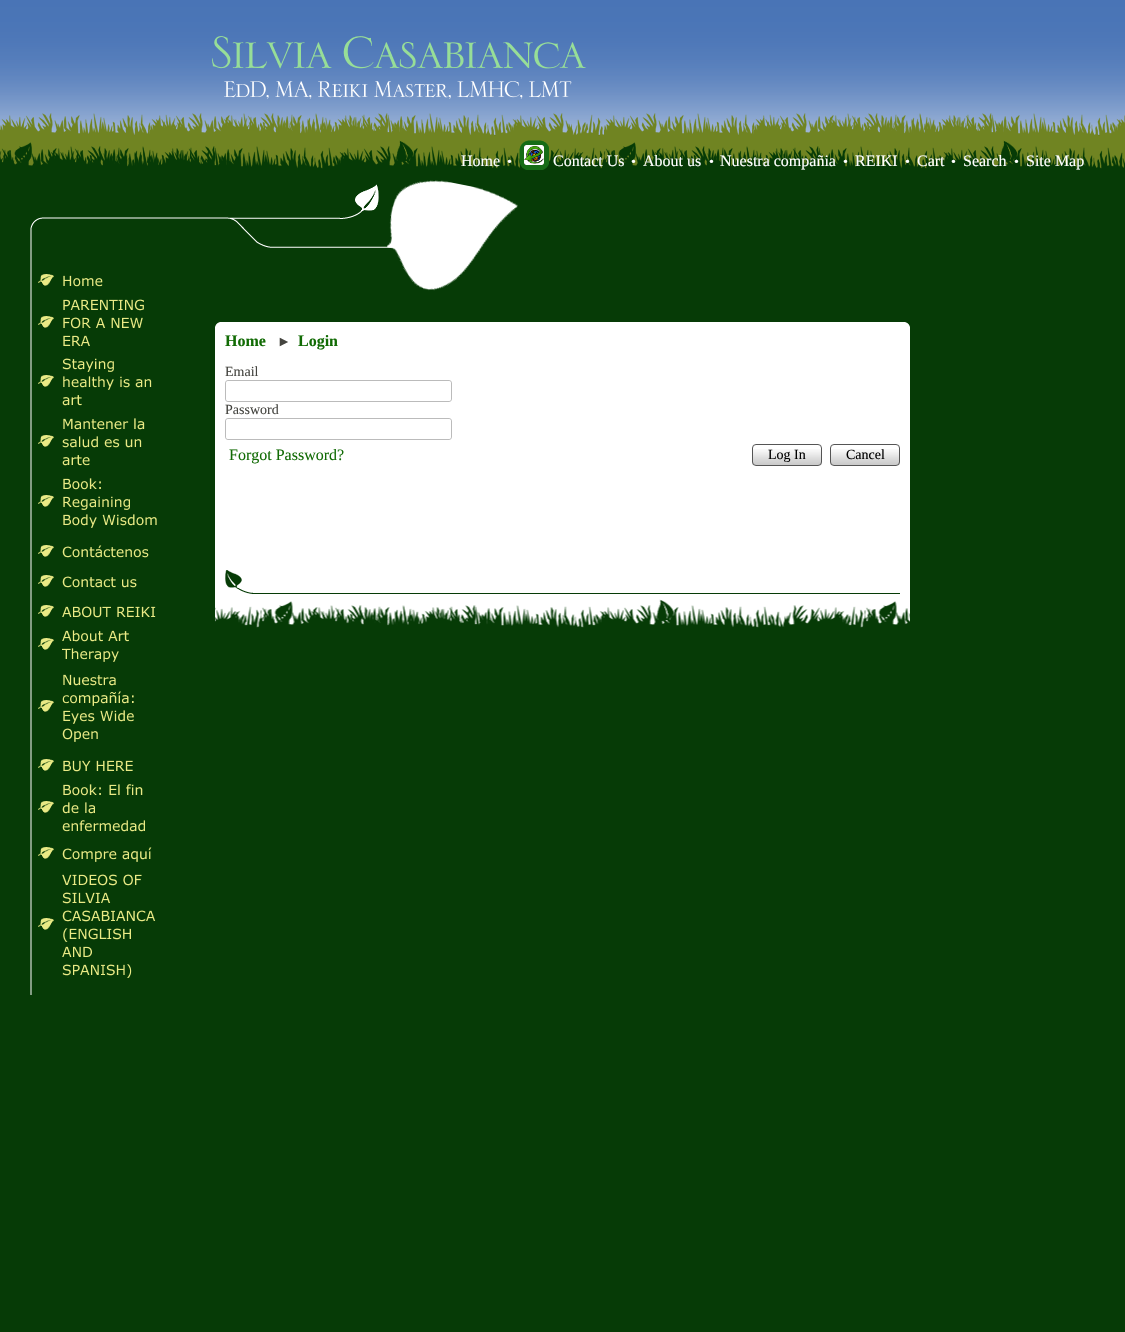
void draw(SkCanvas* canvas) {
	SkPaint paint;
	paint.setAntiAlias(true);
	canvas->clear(0xff063b06);
	canvas->drawImageRect(SkImages::DeferredFromEncodedData(SkData::MakeFromFileName("img1.png")), SkRect::MakeXYWH(0, 0, 1125, 169), SkSamplingOptions());
	canvas->drawImageRect(SkImages::DeferredFromEncodedData(SkData::MakeFromFileName("img2.png")), SkRect::MakeXYWH(30, 180, 488, 815), SkSamplingOptions());
	canvas->drawImageRect(SkImages::DeferredFromEncodedData(SkData::MakeFromFileName("img3.png")), SkRect::MakeXYWH(212, 36, 374, 63), SkSamplingOptions());
	SkFont f1(fontMgr->matchFamilyStyle("Liberation Serif", SkFontStyle::Normal()), 16);
	f1.setSubpixel(true);
	paint.setColor(0xffffffff);
	canvas->drawString("Home", 461, 166, f1, paint);
	SkFont f2(fontMgr->matchFamilyStyle("Liberation Serif", SkFontStyle::Normal()), 14);
	f2.setSubpixel(true);
	canvas->drawString("•", 507, 166, f2, paint);
	canvas->drawImageRect(SkImages::DeferredFromEncodedData(SkData::MakeFromFileName("img4.png")), SkRect::MakeXYWH(519, 140, 30, 30), SkSamplingOptions());
	canvas->drawString("Contact Us", 553, 166, f1, paint);
	canvas->drawString("•", 631, 166, f2, paint);
	canvas->drawString("About us", 643, 166, f1, paint);
	canvas->drawString("•", 709, 166, f2, paint);
	canvas->drawString("Nuestra compañia", 720, 166, f1, paint);
	canvas->drawString("•", 843, 166, f2, paint);
	canvas->drawString("REIKI", 855, 166, f1, paint);
	canvas->drawString("•", 905, 166, f2, paint);
	canvas->drawString("Cart", 917, 166, f1, paint);
	canvas->drawString("•", 951, 166, f2, paint);
	canvas->drawString("Search", 963, 166, f1, paint);
	canvas->drawString("•", 1014, 166, f2, paint);
	canvas->drawString("Site Map", 1026, 166, f1, paint);
	canvas->drawImageRect(SkImages::DeferredFromEncodedData(SkData::MakeFromFileName("img5.png")), SkRect::MakeXYWH(38, 274, 65, 13), SkSamplingOptions());
	canvas->drawImageRect(SkImages::DeferredFromEncodedData(SkData::MakeFromFileName("img6.png")), SkRect::MakeXYWH(38, 299, 106, 47), SkSamplingOptions());
	canvas->drawImageRect(SkImages::DeferredFromEncodedData(SkData::MakeFromFileName("img7.png")), SkRect::MakeXYWH(38, 358, 114, 48), SkSamplingOptions());
	canvas->drawImageRect(SkImages::DeferredFromEncodedData(SkData::MakeFromFileName("img8.png")), SkRect::MakeXYWH(38, 418, 107, 48), SkSamplingOptions());
	canvas->drawImageRect(SkImages::DeferredFromEncodedData(SkData::MakeFromFileName("img9.png")), SkRect::MakeXYWH(38, 478, 119, 50), SkSamplingOptions());
	canvas->drawImageRect(SkImages::DeferredFromEncodedData(SkData::MakeFromFileName("img10.png")), SkRect::MakeXYWH(38, 545, 111, 13), SkSamplingOptions());
	canvas->drawImageRect(SkImages::DeferredFromEncodedData(SkData::MakeFromFileName("img11.png")), SkRect::MakeXYWH(38, 575, 99, 13), SkSamplingOptions());
	canvas->drawImageRect(SkImages::DeferredFromEncodedData(SkData::MakeFromFileName("img12.png")), SkRect::MakeXYWH(38, 605, 118, 13), SkSamplingOptions());
	canvas->drawImageRect(SkImages::DeferredFromEncodedData(SkData::MakeFromFileName("img13.png")), SkRect::MakeXYWH(38, 630, 91, 32), SkSamplingOptions());
	canvas->drawImageRect(SkImages::DeferredFromEncodedData(SkData::MakeFromFileName("img14.png")), SkRect::MakeXYWH(38, 674, 96, 68), SkSamplingOptions());
	canvas->drawImageRect(SkImages::DeferredFromEncodedData(SkData::MakeFromFileName("img15.png")), SkRect::MakeXYWH(38, 759, 95, 13), SkSamplingOptions());
	canvas->drawImageRect(SkImages::DeferredFromEncodedData(SkData::MakeFromFileName("img16.png")), SkRect::MakeXYWH(38, 784, 107, 48), SkSamplingOptions());
	canvas->drawImageRect(SkImages::DeferredFromEncodedData(SkData::MakeFromFileName("img17.png")), SkRect::MakeXYWH(38, 847, 114, 15), SkSamplingOptions());
	canvas->drawImageRect(SkImages::DeferredFromEncodedData(SkData::MakeFromFileName("img18.png")), SkRect::MakeXYWH(38, 874, 118, 104), SkSamplingOptions());
	canvas->drawRect(SkRect::MakeXYWH(215, 322, 695, 306), paint);
	canvas->drawImageRect(SkImages::DeferredFromEncodedData(SkData::MakeFromFileName("img19.png")), SkRect::MakeXYWH(215, 322, 5, 5), SkSamplingOptions());
	canvas->drawImageRect(SkImages::DeferredFromEncodedData(SkData::MakeFromFileName("img20.png")), SkRect::MakeXYWH(905, 322, 5, 5), SkSamplingOptions());
	canvas->drawImageRect(SkImages::DeferredFromEncodedData(SkData::MakeFromFileName("img21.png")), SkRect::MakeXYWH(215, 599, 695, 36), SkSamplingOptions());
	SkFont f3(fontMgr->matchFamilyStyle("Liberation Serif", SkFontStyle::Bold()), 16);
	f3.setSubpixel(true);
	paint.setColor(0xff116b04);
	canvas->drawString("Home", 225, 346, f3, paint);
	SkFont f4(fontMgr->matchFamilyStyle("Liberation Sans", SkFontStyle::Bold()), 14);
	f4.setSubpixel(true);
	paint.setColor(0xff44443f);
	canvas->drawString("►", 277, 346, f4, paint);
	paint.setColor(0xff116b04);
	canvas->drawString("Login", 298, 346, f3, paint);
	paint.setColor(0xff44443f);
	canvas->drawString("Email", 225, 376, f2, paint);
	paint.setStroke(true);
	paint.setStrokeWidth(1);
	paint.setColor(0xffbbbbbb);
	canvas->drawRoundRect(SkRect::MakeXYWH(225.5, 380.5, 226, 21), 2.5, 2.5, paint);
	paint.setStroke(false);
	paint.setColor(0xffffffff);
	canvas->drawRoundRect(SkRect::MakeXYWH(226, 381, 225, 20), 3, 3, paint);
	paint.setColor(0xff44443f);
	canvas->drawString("Password", 225, 414, f2, paint);
	paint.setStroke(true);
	paint.setColor(0xffbbbbbb);
	canvas->drawRoundRect(SkRect::MakeXYWH(225.5, 418.5, 226, 21), 2.5, 2.5, paint);
	paint.setStroke(false);
	paint.setColor(0xffffffff);
	canvas->drawRoundRect(SkRect::MakeXYWH(226, 419, 225, 20), 3, 3, paint);
	paint.setColor(0xff116b04);
	canvas->drawString("Forgot Password?", 229, 460, f1, paint);
	canvas->drawImageRect(SkImages::DeferredFromEncodedData(SkData::MakeFromFileName("img22.png")), SkRect::MakeXYWH(752, 449, 70, 16), SkSamplingOptions());
	paint.setStroke(true);
	paint.setColor(0xff555555);
	canvas->drawRoundRect(SkRect::MakeXYWH(752.5, 444.5, 69, 21), 3.5, 3.5, paint);
	paint.setStroke(false);
	paint.setColor(0xff000000);
	canvas->drawString("Log In", 768, 459, f2, paint);
	canvas->drawImageRect(SkImages::DeferredFromEncodedData(SkData::MakeFromFileName("img22.png")), SkRect::MakeXYWH(830, 449, 70, 16), SkSamplingOptions());
	paint.setStroke(true);
	paint.setColor(0xff555555);
	canvas->drawRoundRect(SkRect::MakeXYWH(830.5, 444.5, 69, 21), 3.5, 3.5, paint);
	paint.setStroke(false);
	paint.setColor(0xff000000);
	canvas->drawString("Cancel", 846, 459, f2, paint);
	canvas->drawImageRect(SkImages::DeferredFromEncodedData(SkData::MakeFromFileName("img23.png")), SkRect::MakeXYWH(225, 570, 675, 24), SkSamplingOptions());
}
